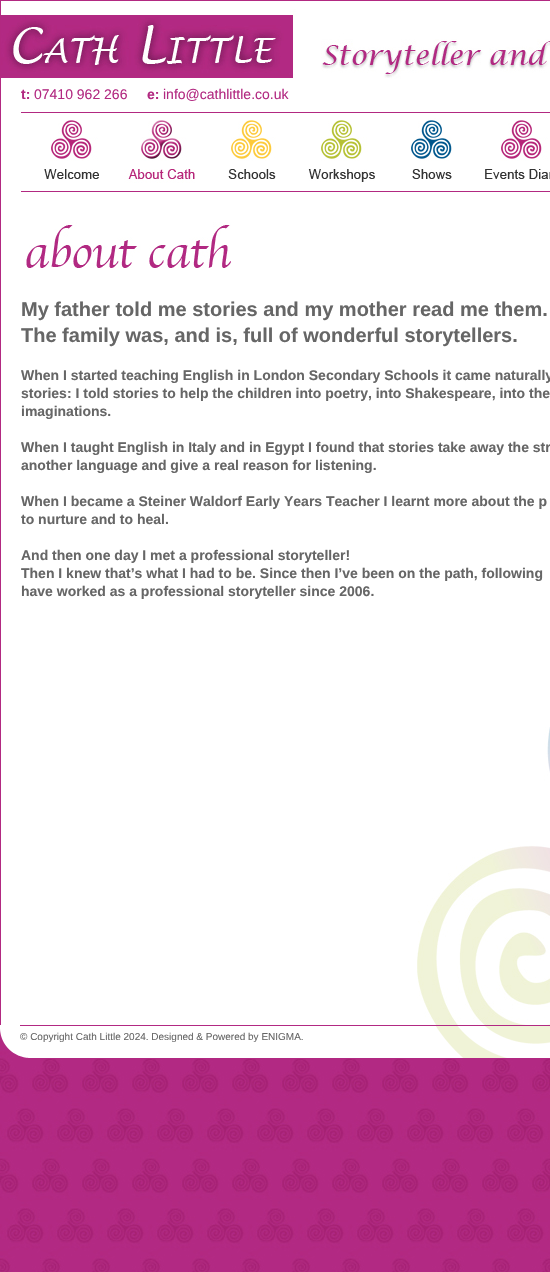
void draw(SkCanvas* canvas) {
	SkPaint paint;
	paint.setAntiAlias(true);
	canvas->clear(0xffffffff);
	canvas->drawImageRect(SkImages::DeferredFromEncodedData(SkData::MakeFromFileName("img1.png")), SkRect::MakeXYWH(0, 1028, 550, 244), SkSamplingOptions());
	canvas->drawImageRect(SkImages::DeferredFromEncodedData(SkData::MakeFromFileName("img2.png")), SkRect::MakeXYWH(417, 727, 133, 298), SkSamplingOptions());
	paint.setColor(0xffb22981);
	canvas->drawRect(SkRect::MakeXYWH(0, 0, 550, 1), paint);
	canvas->drawRect(SkRect::MakeXYWH(0, 0, 1, 1025), paint);
	canvas->drawImageRect(SkImages::DeferredFromEncodedData(SkData::MakeFromFileName("img3.png")), SkRect::MakeXYWH(1, 9, 549, 70), SkSamplingOptions());
	SkFont f1(fontMgr->matchFamilyStyle("Liberation Sans", SkFontStyle::Bold()), 14);
	f1.setSubpixel(true);
	canvas->drawString("t:", 21, 99, f1, paint);
	SkFont f2(fontMgr->matchFamilyStyle("Liberation Sans", SkFontStyle::Normal()), 14);
	f2.setSubpixel(true);
	canvas->drawString("07410 962 266", 34, 99, f2, paint);
	canvas->drawString("e:", 147, 99, f1, paint);
	canvas->drawString("info@cathlittle.co.uk", 163, 99, f2, paint);
	canvas->drawRect(SkRect::MakeXYWH(21, 112, 529, 1), paint);
	canvas->drawRect(SkRect::MakeXYWH(21, 191, 529, 1), paint);
	canvas->drawImageRect(SkImages::DeferredFromEncodedData(SkData::MakeFromFileName("img4.png")), SkRect::MakeXYWH(44, 120, 55, 59), SkSamplingOptions());
	canvas->drawImageRect(SkImages::DeferredFromEncodedData(SkData::MakeFromFileName("img5.png")), SkRect::MakeXYWH(124, 120, 71, 63), SkSamplingOptions());
	canvas->drawImageRect(SkImages::DeferredFromEncodedData(SkData::MakeFromFileName("img6.png")), SkRect::MakeXYWH(228, 120, 48, 59), SkSamplingOptions());
	canvas->drawImageRect(SkImages::DeferredFromEncodedData(SkData::MakeFromFileName("img7.png")), SkRect::MakeXYWH(308, 120, 67, 62), SkSamplingOptions());
	canvas->drawImageRect(SkImages::DeferredFromEncodedData(SkData::MakeFromFileName("img8.png")), SkRect::MakeXYWH(410, 118, 42, 61), SkSamplingOptions());
	canvas->drawImageRect(SkImages::DeferredFromEncodedData(SkData::MakeFromFileName("img9.png")), SkRect::MakeXYWH(485, 120, 65, 59), SkSamplingOptions());
	canvas->drawImageRect(SkImages::DeferredFromEncodedData(SkData::MakeFromFileName("img10.png")), SkRect::MakeXYWH(26, 222, 205, 46), SkSamplingOptions());
	SkFont f3(fontMgr->matchFamilyStyle("Liberation Sans", SkFontStyle::Bold()), 20);
	f3.setSubpixel(true);
	paint.setColor(0xff666666);
	canvas->drawString("My father told me stories and my mother read me them.", 21, 316, f3, paint);
	canvas->drawString("The family was, and is, full of wonderful storytellers.", 21, 342, f3, paint);
	canvas->drawString("When I started teaching English in London Secondary Schools it came naturally", 21, 380, f1, paint);
	canvas->drawString("stories: I told stories to help the children into poetry, into Shakespeare, into the", 21, 398, f1, paint);
	canvas->drawString("imaginations.", 21, 416, f1, paint);
	canvas->drawString("When I taught English in Italy and in Egypt I found that stories take away the str", 21, 452, f1, paint);
	canvas->drawString("another language and give a real reason for listening.", 21, 470, f1, paint);
	canvas->drawString("When I became a Steiner Waldorf Early Years Teacher I learnt more about the p", 21, 506, f1, paint);
	canvas->drawString("to nurture and to heal.", 21, 524, f1, paint);
	canvas->drawString("And then one day I met a professional storyteller!", 21, 560, f1, paint);
	canvas->drawString("Then I knew that’s what I had to be. Since then I’ve been on the path, following", 21, 578, f1, paint);
	canvas->drawString("have worked as a professional storyteller since 2006.", 21, 596, f1, paint);
	canvas->drawImageRect(SkImages::DeferredFromEncodedData(SkData::MakeFromFileName("img11.png")), SkRect::MakeXYWH(0, 1025, 550, 34), SkSamplingOptions());
	paint.setColor(0xffb22983);
	canvas->drawRect(SkRect::MakeXYWH(20, 1025, 530, 1), paint);
	SkFont f4(fontMgr->matchFamilyStyle("Liberation Sans", SkFontStyle::Normal()), 10);
	f4.setSubpixel(true);
	paint.setColor(0xff666666);
	canvas->drawString("© Copyright Cath Little 2024. Designed & Powered by ENIGMA.", 20, 1040, f4, paint);
}
